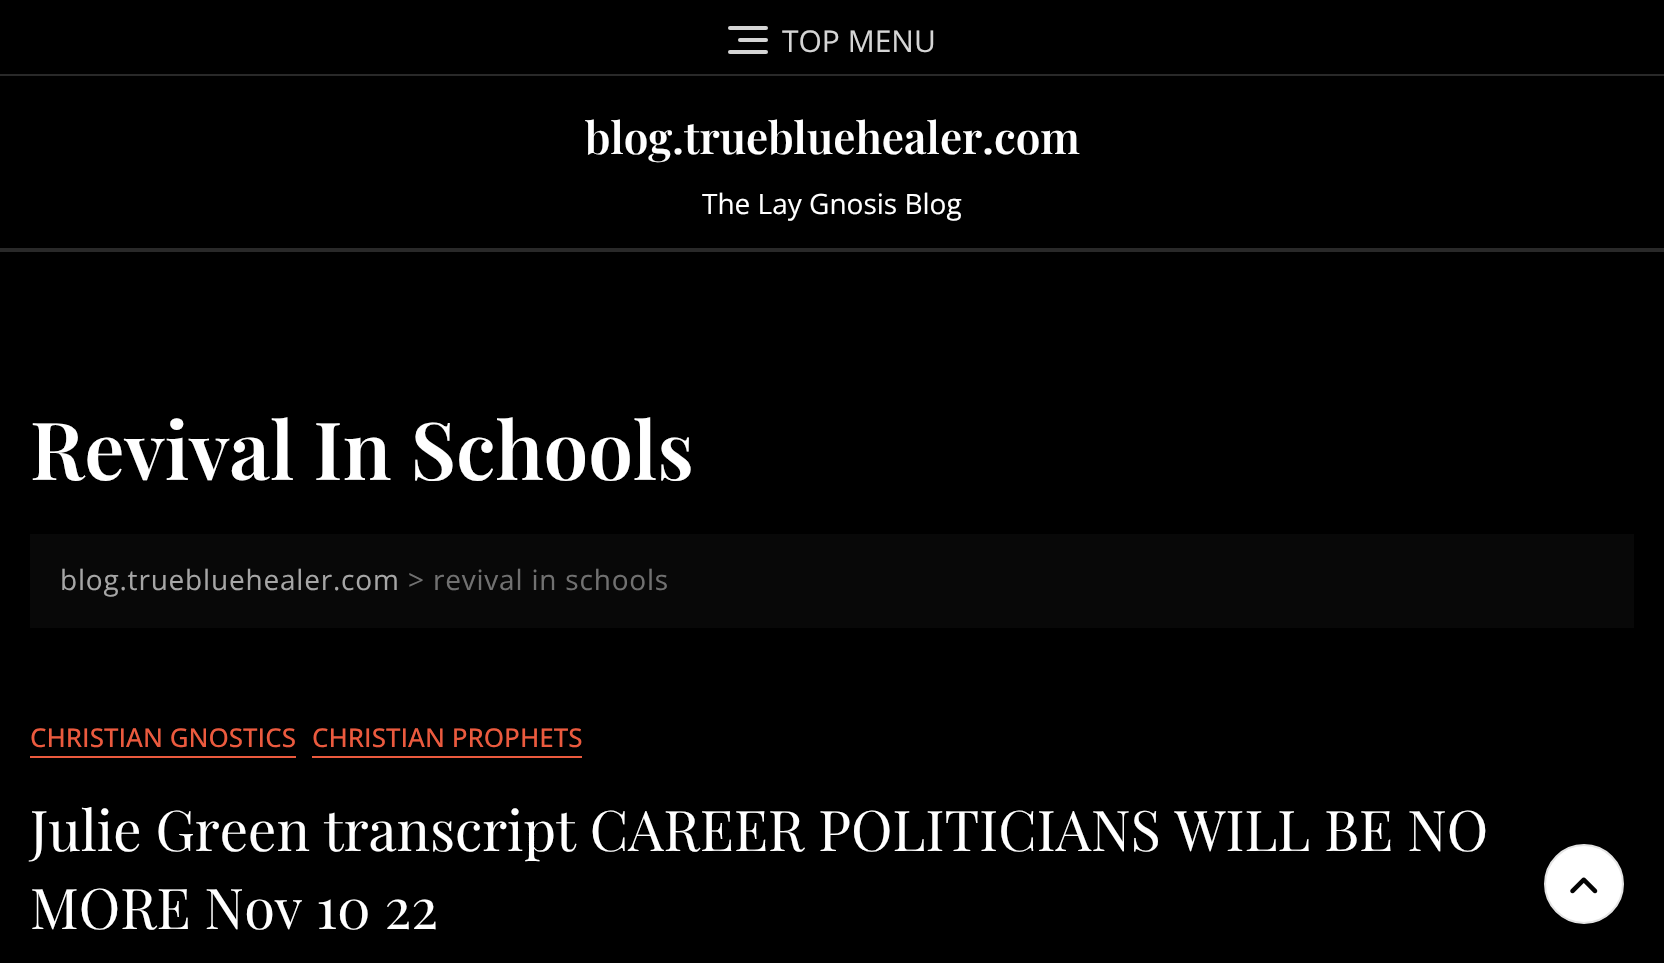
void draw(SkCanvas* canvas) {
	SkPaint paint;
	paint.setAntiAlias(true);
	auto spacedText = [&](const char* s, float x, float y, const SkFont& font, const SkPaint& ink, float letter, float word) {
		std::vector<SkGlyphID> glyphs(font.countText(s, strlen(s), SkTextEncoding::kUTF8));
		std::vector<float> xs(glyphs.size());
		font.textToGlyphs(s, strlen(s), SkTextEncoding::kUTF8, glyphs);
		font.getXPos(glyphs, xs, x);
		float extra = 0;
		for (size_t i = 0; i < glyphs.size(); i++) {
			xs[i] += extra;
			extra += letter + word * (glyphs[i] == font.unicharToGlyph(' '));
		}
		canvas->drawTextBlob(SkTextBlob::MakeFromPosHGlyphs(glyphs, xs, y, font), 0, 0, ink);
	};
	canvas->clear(0xff000000);
	paint.setColor(0xff292929);
	canvas->drawRect(SkRect::MakeXYWH(0, 74, 1664, 2), paint);
	paint.setColor(0xffd5d5d5);
	canvas->drawRoundRect(SkRect::MakeXYWH(738, 38, 30, 4), 2, 2, paint);
	canvas->drawRoundRect(SkRect::MakeXYWH(728, 26, 40, 4), 2, 2, paint);
	canvas->drawRoundRect(SkRect::MakeXYWH(728, 50, 40, 4), 2, 2, paint);
	SkFont f1(fontMgr->matchFamilyStyle("Open Sans", SkFontStyle::Normal()), 30);
	f1.setSubpixel(true);
	canvas->drawString("TOP MENU", 782, 52, f1, paint);
	SkFont f2(fontMgr->matchFamilyStyle("Playfair Display", SkFontStyle(600, SkFontStyle::kNormal_Width, SkFontStyle::kUpright_Slant)), 44);
	f2.setSubpixel(true);
	paint.setColor(0xffffffff);
	canvas->drawString("blog.truebluehealer.com", 585, 154, f2, paint);
	SkFont f3(fontMgr->matchFamilyStyle("Open Sans", SkFontStyle::Normal()), 28);
	f3.setSubpixel(true);
	canvas->drawString("The Lay Gnosis Blog", 702, 214, f3, paint);
	paint.setColor(0xff292929);
	canvas->drawRect(SkRect::MakeXYWH(0, 248, 1664, 4), paint);
	SkFont f4(fontMgr->matchFamilyStyle("Playfair Display", SkFontStyle(600, SkFontStyle::kNormal_Width, SkFontStyle::kUpright_Slant)), 80);
	f4.setSubpixel(true);
	paint.setColor(0xffffffff);
	canvas->drawString("Revival In Schools", 30, 480, f4, paint);
	paint.setColor(0xff080808);
	canvas->drawRect(SkRect::MakeXYWH(30, 534, 1604, 94), paint);
	paint.setColor(0xffa6a6a6);
	spacedText("blog.truebluehealer.com", 60, 590, f3, paint, 0.8, 0);
	paint.setColor(0xff717171);
	spacedText("> revival in schools", 408, 590, f3, paint, 0.8, 0);
	SkFont f5(fontMgr->matchFamilyStyle("Open Sans", SkFontStyle(500, SkFontStyle::kNormal_Width, SkFontStyle::kUpright_Slant)), 26);
	f5.setSubpixel(true);
	paint.setColor(0xffeb5a3e);
	canvas->drawString("CHRISTIAN GNOSTICS", 30, 747, f5, paint);
	canvas->drawRect(SkRect::MakeXYWH(30, 756, 266, 2), paint);
	canvas->drawString("CHRISTIAN PROPHETS", 312, 747, f5, paint);
	canvas->drawRect(SkRect::MakeXYWH(312, 756, 270, 2), paint);
	SkFont f6(fontMgr->matchFamilyStyle("Playfair Display", SkFontStyle::Normal()), 56);
	f6.setSubpixel(true);
	paint.setColor(0xffffffff);
	canvas->drawString("Julie Green transcript CAREER POLITICIANS WILL BE NO", 30, 851, f6, paint);
	canvas->drawString("MORE Nov 10 22", 30, 929, f6, paint);
	canvas->drawCircle(1584, 884, 39, paint);
	paint.setStroke(true);
	paint.setStrokeWidth(2);
	paint.setColor(0xffe5e5e5);
	canvas->drawCircle(1584, 884, 39, paint);
	canvas->drawImageRect(SkImages::DeferredFromEncodedData(SkData::MakeFromFileName("img1.png")), SkRect::MakeXYWH(1570, 877, 28, 17), SkSamplingOptions());
}
